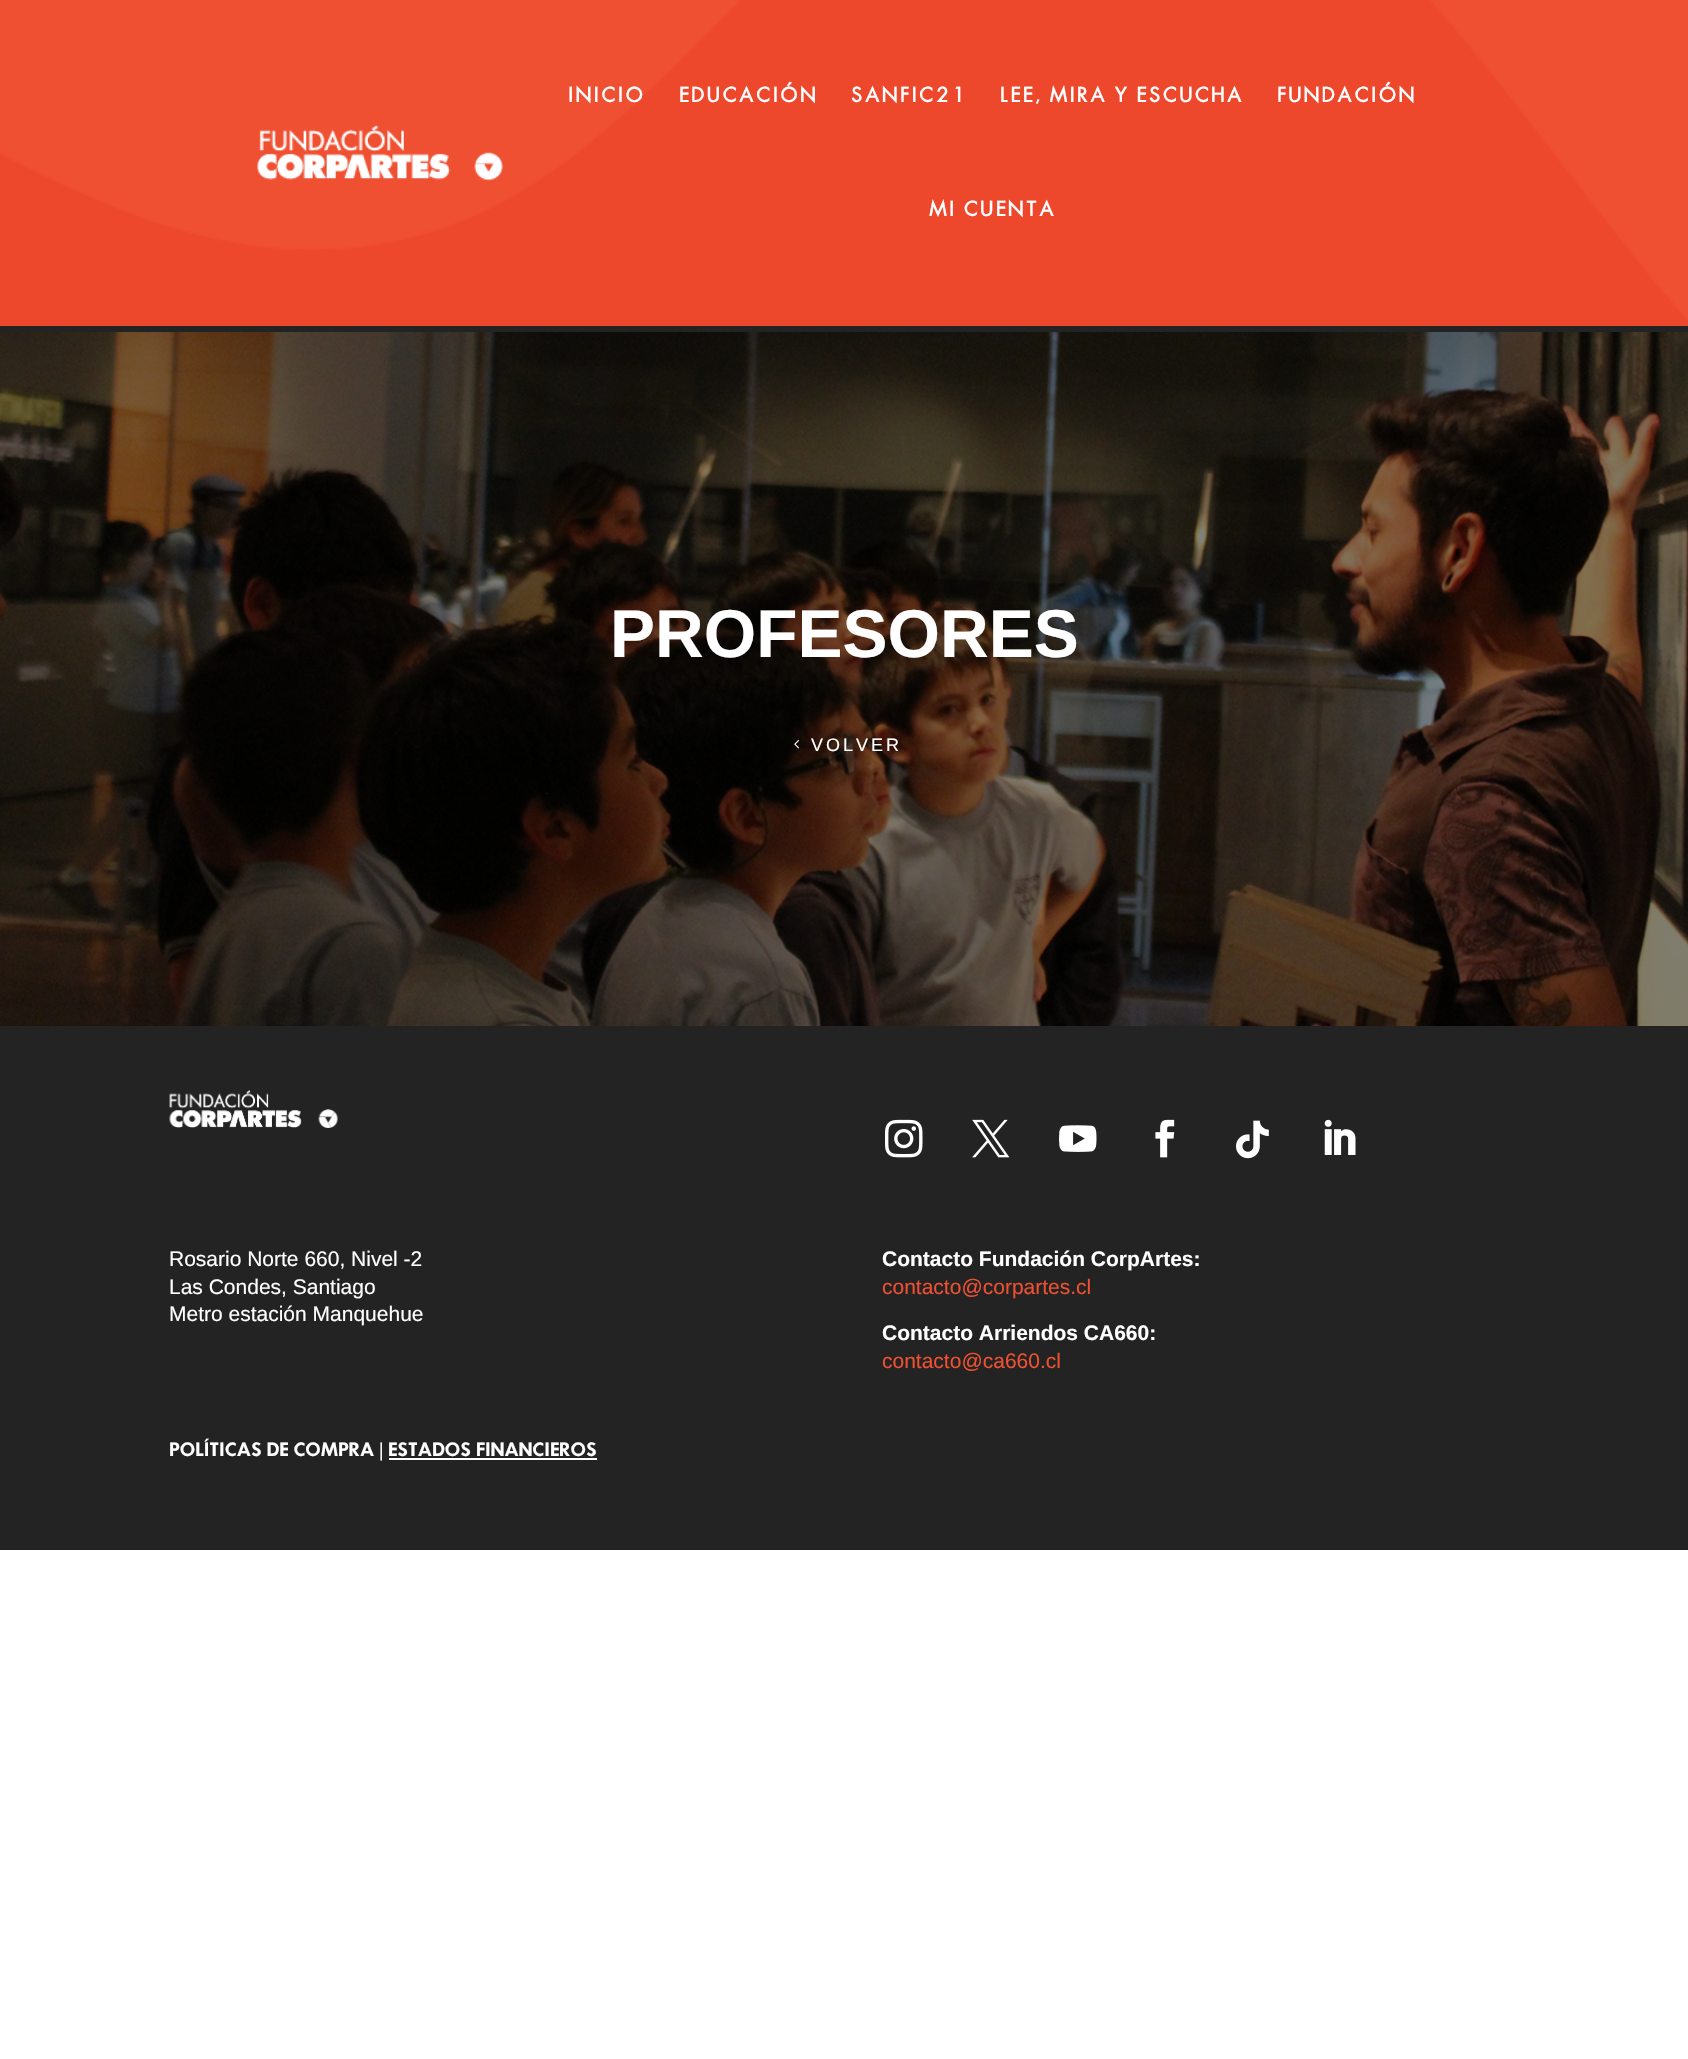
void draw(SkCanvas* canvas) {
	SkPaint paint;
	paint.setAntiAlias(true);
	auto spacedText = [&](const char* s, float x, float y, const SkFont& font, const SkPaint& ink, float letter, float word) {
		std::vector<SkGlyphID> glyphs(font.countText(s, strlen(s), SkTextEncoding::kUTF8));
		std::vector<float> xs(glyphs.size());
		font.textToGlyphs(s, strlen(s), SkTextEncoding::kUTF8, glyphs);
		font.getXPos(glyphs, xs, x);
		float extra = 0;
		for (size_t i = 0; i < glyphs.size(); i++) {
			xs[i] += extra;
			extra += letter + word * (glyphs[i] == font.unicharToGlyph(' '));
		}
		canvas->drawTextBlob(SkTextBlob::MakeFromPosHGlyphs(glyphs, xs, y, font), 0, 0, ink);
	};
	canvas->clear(0xffffffff);
	paint.setColor(0xfff05032);
	canvas->drawRect(SkRect::MakeXYWH(0, 325, 1688, 1), paint);
	canvas->drawImageRect(SkImages::DeferredFromEncodedData(SkData::MakeFromFileName("img1.png")), SkRect::MakeXYWH(0, 0, 1688, 326), SkSamplingOptions());
	paint.setColor(0xff232323);
	canvas->drawRect(SkRect::MakeXYWH(0, 326, 1688, 6), paint);
	canvas->drawImageRect(SkImages::DeferredFromEncodedData(SkData::MakeFromFileName("img2.png")), SkRect::MakeXYWH(257, 124, 246, 57), SkSamplingOptions());
	SkFont f1(fontMgr->matchFamilyStyle("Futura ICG", SkFontStyle::Bold()), 19.5);
	f1.setSubpixel(true);
	paint.setColor(0xffffffff);
	spacedText("INICIO", 568, 102, f1, paint, 3, 0);
	spacedText("EDUCACIÓN", 679, 102, f1, paint, 3, 0);
	spacedText("SANFIC21", 851, 102, f1, paint, 3, 0);
	spacedText("LEE, MIRA Y ESCUCHA", 1000, 102, f1, paint, 3, 0);
	spacedText("FUNDACIÓN", 1277, 102, f1, paint, 3, 0);
	spacedText("MI CUENTA", 929, 216, f1, paint, 3, 0);
	canvas->drawImageRect(SkImages::DeferredFromEncodedData(SkData::MakeFromFileName("img3.png")), SkRect::MakeXYWH(0, 332, 1688, 694), SkSamplingOptions());
	SkFont f2(fontMgr->matchFamilyStyle("Liberation Sans", SkFontStyle::Bold()), 67.5);
	f2.setSubpixel(true);
	canvas->drawString("PROFESORES", 610, 657, f2, paint);
	canvas->drawImageRect(SkImages::DeferredFromEncodedData(SkData::MakeFromFileName("img4.png")), SkRect::MakeXYWH(794, 740, 5, 9), SkSamplingOptions());
	SkFont f3(fontMgr->matchFamilyStyle("Liberation Sans", SkFontStyle::Normal()), 18);
	f3.setSubpixel(true);
	spacedText("VOLVER", 811, 751, f3, paint, 3, 0);
	paint.setColor(0xff232323);
	canvas->drawRect(SkRect::MakeXYWH(0, 1026, 1688, 524), paint);
	canvas->drawImageRect(SkImages::DeferredFromEncodedData(SkData::MakeFromFileName("img5.png")), SkRect::MakeXYWH(169, 1090, 169, 38), SkSamplingOptions());
	canvas->drawImageRect(SkImages::DeferredFromEncodedData(SkData::MakeFromFileName("img6.png")), SkRect::MakeXYWH(885, 1119, 38, 39), SkSamplingOptions());
	canvas->drawImageRect(SkImages::DeferredFromEncodedData(SkData::MakeFromFileName("img7.png")), SkRect::MakeXYWH(972, 1119, 38, 39), SkSamplingOptions());
	canvas->drawImageRect(SkImages::DeferredFromEncodedData(SkData::MakeFromFileName("img8.png")), SkRect::MakeXYWH(1059, 1125, 38, 27), SkSamplingOptions());
	canvas->drawImageRect(SkImages::DeferredFromEncodedData(SkData::MakeFromFileName("img9.png")), SkRect::MakeXYWH(1155, 1119, 20, 39), SkSamplingOptions());
	canvas->drawImageRect(SkImages::DeferredFromEncodedData(SkData::MakeFromFileName("img10.png")), SkRect::MakeXYWH(1236, 1120, 33, 39), SkSamplingOptions());
	canvas->drawImageRect(SkImages::DeferredFromEncodedData(SkData::MakeFromFileName("img11.png")), SkRect::MakeXYWH(1324, 1119, 32, 36), SkSamplingOptions());
	SkFont f4(fontMgr->matchFamilyStyle("Liberation Sans", SkFontStyle::Normal()), 21);
	f4.setSubpixel(true);
	paint.setColor(0xffffffff);
	canvas->drawString("Rosario Norte 660, Nivel -2", 169, 1266, f4, paint);
	canvas->drawString("Las Condes, Santiago", 169, 1294, f4, paint);
	canvas->drawString("Metro estación Manquehue", 169, 1321, f4, paint);
	SkFont f5(fontMgr->matchFamilyStyle("Liberation Sans", SkFontStyle::Bold()), 21);
	f5.setSubpixel(true);
	canvas->drawString("Contacto Fundación CorpArtes:", 882, 1266, f5, paint);
	paint.setColor(0xfff05032);
	canvas->drawString("contacto@corpartes.cl", 882, 1294, f4, paint);
	paint.setColor(0xffffffff);
	canvas->drawString("Contacto Arriendos CA660:", 882, 1340, f5, paint);
	paint.setColor(0xfff05032);
	canvas->drawString("contacto@ca660.cl", 882, 1368, f4, paint);
	SkFont f6(fontMgr->matchFamilyStyle("Futura ICG", SkFontStyle::Normal()), 18);
	f6.setSubpixel(true);
	paint.setColor(0xffffffff);
	canvas->drawString("POLÍTICAS DE COMPRA | ESTADOS FINANCIEROS", 169, 1456, f6, paint);
	canvas->drawRect(SkRect::MakeXYWH(389, 1458, 208, 2), paint);
}
